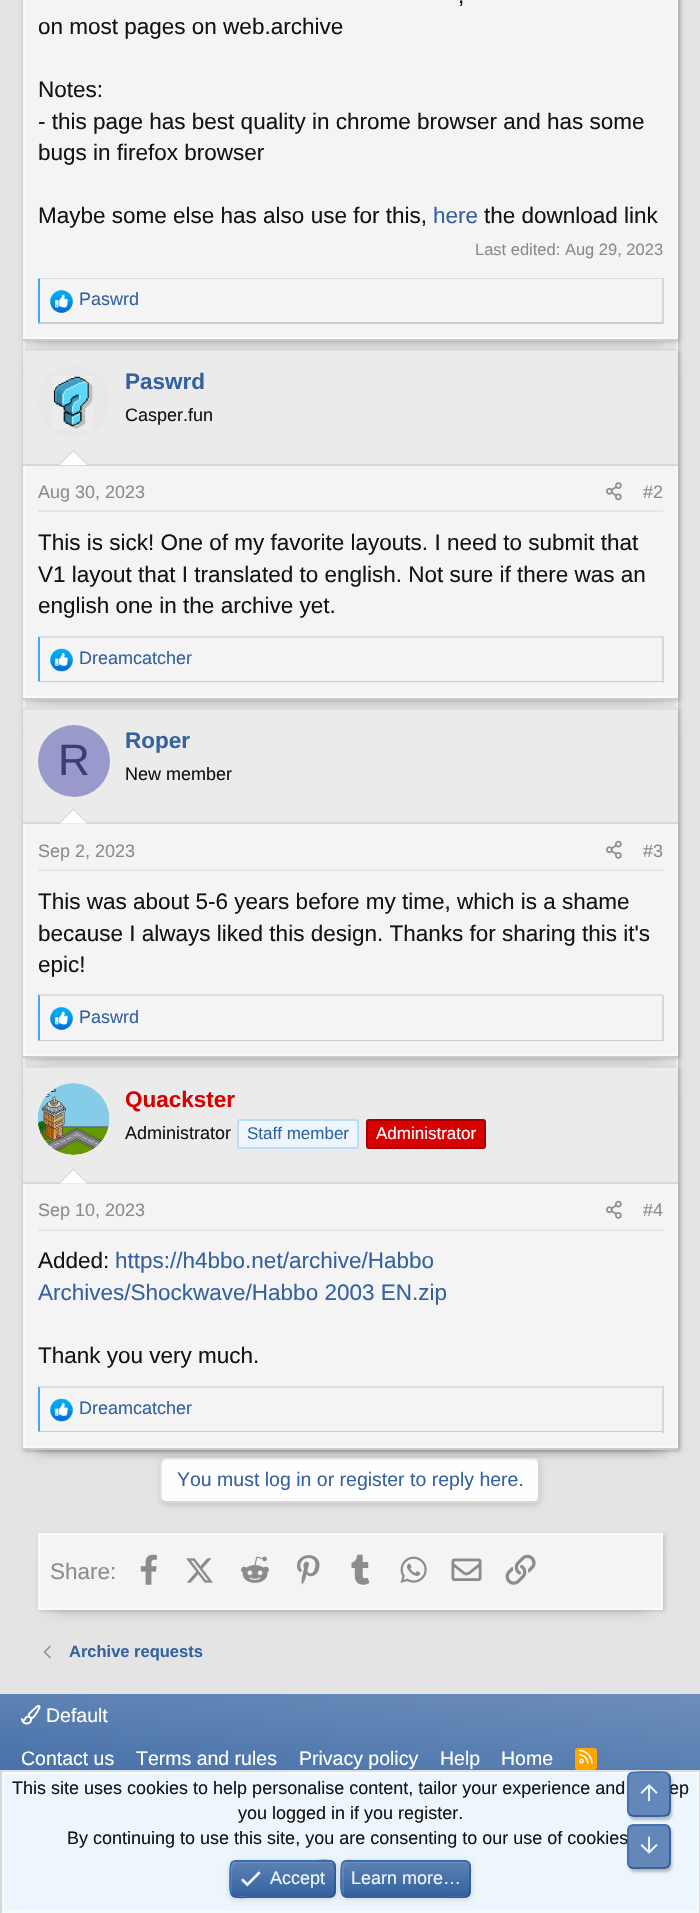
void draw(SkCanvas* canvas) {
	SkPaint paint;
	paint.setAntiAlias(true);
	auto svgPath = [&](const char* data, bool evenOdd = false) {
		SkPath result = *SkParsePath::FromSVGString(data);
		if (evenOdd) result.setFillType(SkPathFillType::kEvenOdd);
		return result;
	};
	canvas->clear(0xffe4e4e4);
	canvas->save();
	canvas->clipRect(SkRect::MakeXYWH(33, 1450, 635, 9));
	paint.setColor(0x33000000);
	paint.setMaskFilter(SkMaskFilter::MakeBlur(kNormal_SkBlurStyle, 7.5));
	canvas->drawRect(SkRect::MakeXYWH(38, -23, 625, 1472), paint);
	paint.setMaskFilter(nullptr);
	canvas->restore();
	canvas->save();
	canvas->clipPath(svgPath("M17 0H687V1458H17ZM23-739H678V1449H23Z", true), true);
	paint.setColor(0x26000000);
	paint.setMaskFilter(SkMaskFilter::MakeBlur(kNormal_SkBlurStyle, 2));
	canvas->drawRect(SkRect::MakeXYWH(24, -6, 656, 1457), paint);
	paint.setMaskFilter(nullptr);
	canvas->restore();
	paint.setStroke(true);
	paint.setStrokeWidth(2);
	paint.setColor(0xfff2f2f2);
	canvas->drawRect(SkRect::MakeXYWH(24, -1, 653, 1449), paint);
	paint.setStroke(false);
	paint.setColor(0x33000000);
	paint.setMaskFilter(SkMaskFilter::MakeBlur(kNormal_SkBlurStyle, 7.5));
	canvas->drawRect(SkRect::MakeXYWH(38, -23, 625, 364), paint);
	paint.setMaskFilter(nullptr);
	paint.setColor(0x26000000);
	paint.setMaskFilter(SkMaskFilter::MakeBlur(kNormal_SkBlurStyle, 2));
	canvas->drawRect(SkRect::MakeXYWH(24, -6, 656, 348), paint);
	paint.setMaskFilter(nullptr);
	paint.setColor(0xfff4f4f4);
	canvas->drawRect(SkRect::MakeXYWH(24, -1, 653, 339), paint);
	paint.setStroke(true);
	paint.setColor(0xfffafafa);
	canvas->drawRect(SkRect::MakeXYWH(24, -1, 653, 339), paint);
	paint.setStroke(false);
	paint.setColor(0xffcbcbcb);
	canvas->drawRect(SkRect::MakeXYWH(23, 339, 655, 2), paint);
	SkFont f1(fontMgr->matchFamilyStyle("Liberation Sans", SkFontStyle::Normal()), 22.5);
	f1.setSubpixel(true);
	paint.setColor(0xff141414);
	canvas->drawString(",", 458, 3, f1, paint);
	canvas->drawString("on most pages on web.archive", 38, 34, f1, paint);
	canvas->drawString("Notes:", 38, 97, f1, paint);
	canvas->drawString("- this page has best quality in chrome browser and has some", 38, 129, f1, paint);
	canvas->drawString("bugs in firefox browser", 38, 160, f1, paint);
	canvas->drawString("Maybe some else has also use for this,", 38, 223, f1, paint);
	paint.setColor(0xff3462a0);
	canvas->drawString("here", 433, 223, f1, paint);
	paint.setColor(0xff141414);
	canvas->drawString("the download link", 484, 223, f1, paint);
	SkFont f2(fontMgr->matchFamilyStyle("Liberation Sans", SkFontStyle::Normal()), 16.5);
	f2.setSubpixel(true);
	paint.setColor(0xff8c8c8c);
	canvas->drawString("Last edited: Aug 29, 2023", 475, 255, f2, paint);
	paint.setColor(0xffdfdfdf);
	canvas->drawPath(svgPath("M38 278H663L662 279H40Z"), paint);
	paint.setColor(0xffd8d8d8);
	canvas->drawRect(SkRect::MakeXYWH(662, 278, 2, 46), paint);
	paint.setColor(0xffcbcbcb);
	canvas->drawPath(svgPath("M663 324H38L40 322H662Z"), paint);
	paint.setColor(0xff47a7eb);
	canvas->drawPath(svgPath("M38 324V278L40 279V322Z"), paint);
	canvas->drawImageRect(SkImages::DeferredFromEncodedData(SkData::MakeFromFileName("img1.png")), SkRect::MakeXYWH(50, 290, 23, 23), SkSamplingOptions());
	SkFont f3(fontMgr->matchFamilyStyle("Liberation Sans", SkFontStyle::Normal()), 18);
	f3.setSubpixel(true);
	paint.setColor(0xff3462a0);
	canvas->drawString("Paswrd", 79, 305, f3, paint);
	paint.setColor(0x33000000);
	paint.setMaskFilter(SkMaskFilter::MakeBlur(kNormal_SkBlurStyle, 7.5));
	canvas->drawRect(SkRect::MakeXYWH(38, 380, 625, 319), paint);
	paint.setMaskFilter(nullptr);
	paint.setColor(0x26000000);
	paint.setMaskFilter(SkMaskFilter::MakeBlur(kNormal_SkBlurStyle, 2));
	canvas->drawRect(SkRect::MakeXYWH(24, 351, 656, 350), paint);
	paint.setMaskFilter(nullptr);
	paint.setColor(0xfff4f4f4);
	canvas->drawRect(SkRect::MakeXYWH(25, 466, 651, 230), paint);
	paint.setStroke(true);
	paint.setColor(0xfffafafa);
	canvas->drawRect(SkRect::MakeXYWH(24, 352, 653, 345), paint);
	paint.setStroke(false);
	paint.setColor(0xffdfdfdf);
	canvas->drawRect(SkRect::MakeXYWH(23, 350, 655, 1), paint);
	paint.setColor(0xffcbcbcb);
	canvas->drawRect(SkRect::MakeXYWH(23, 698, 655, 2), paint);
	paint.setColor(0xffebebeb);
	canvas->drawRect(SkRect::MakeXYWH(23, 351, 655, 113), paint);
	paint.setColor(0xffd8d8d8);
	canvas->drawRect(SkRect::MakeXYWH(23, 464, 655, 2), paint);
	paint.setColor(0xffe8e8e8);
	canvas->drawCircle(74, 402, 36, paint);
	canvas->drawImageRect(SkImages::DeferredFromEncodedData(SkData::MakeFromFileName("img2.png")), SkRect::MakeXYWH(52, 376, 41, 54), SkSamplingOptions());
	SkFont f4(fontMgr->matchFamilyStyle("Liberation Sans", SkFontStyle::Bold()), 22.5);
	f4.setSubpixel(true);
	paint.setColor(0xff3462a0);
	canvas->drawString("Paswrd", 125, 389, f4, paint);
	paint.setColor(0xff141414);
	canvas->drawString("Casper.fun", 125, 421, f3, paint);
	paint.setColor(0xffd8d8d8);
	canvas->drawPath(svgPath("M88.5 465H58.5L73.5 450Z"), paint);
	paint.setColor(0xfffefefe);
	canvas->drawPath(svgPath("M87 465H60L73.5 451.5Z"), paint);
	paint.setColor(0xffe7e7e7);
	canvas->drawRect(SkRect::MakeXYWH(38, 510, 625, 2), paint);
	paint.setColor(0xff8c8c8c);
	canvas->drawString("Aug 30, 2023", 38, 498, f3, paint);
	canvas->drawImageRect(SkImages::DeferredFromEncodedData(SkData::MakeFromFileName("img3.png")), SkRect::MakeXYWH(606, 482, 16, 19), SkSamplingOptions());
	canvas->drawString("#2", 643, 498, f3, paint);
	paint.setColor(0xff141414);
	canvas->drawString("This is sick! One of my favorite layouts. I need to submit that", 38, 550, f1, paint);
	canvas->drawString("V1 layout that I translated to english. Not sure if there was an", 38, 582, f1, paint);
	canvas->drawString("english one in the archive yet.", 38, 613, f1, paint);
	paint.setColor(0xffdfdfdf);
	canvas->drawPath(svgPath("M38 636H663L662 638H40Z"), paint);
	paint.setColor(0xffd8d8d8);
	canvas->drawRect(SkRect::MakeXYWH(662, 636, 2, 47), paint);
	paint.setColor(0xffcbcbcb);
	canvas->drawPath(svgPath("M663 682H38L40 681H662Z"), paint);
	paint.setColor(0xff47a7eb);
	canvas->drawPath(svgPath("M38 682V636L40 638V681Z"), paint);
	canvas->drawImageRect(SkImages::DeferredFromEncodedData(SkData::MakeFromFileName("img4.png")), SkRect::MakeXYWH(50, 648, 23, 24), SkSamplingOptions());
	paint.setColor(0xff3462a0);
	canvas->drawString("Dreamcatcher", 79, 664, f3, paint);
	paint.setColor(0x33000000);
	paint.setMaskFilter(SkMaskFilter::MakeBlur(kNormal_SkBlurStyle, 7.5));
	canvas->drawRect(SkRect::MakeXYWH(38, 738, 625, 320), paint);
	paint.setMaskFilter(nullptr);
	paint.setColor(0x26000000);
	paint.setMaskFilter(SkMaskFilter::MakeBlur(kNormal_SkBlurStyle, 2));
	canvas->drawRect(SkRect::MakeXYWH(24, 710, 656, 349), paint);
	paint.setMaskFilter(nullptr);
	paint.setColor(0xfff4f4f4);
	canvas->drawRect(SkRect::MakeXYWH(25, 824, 651, 230), paint);
	paint.setStroke(true);
	paint.setColor(0xfffafafa);
	canvas->drawRect(SkRect::MakeXYWH(24, 711, 653, 344), paint);
	paint.setStroke(false);
	paint.setColor(0xffdfdfdf);
	canvas->drawRect(SkRect::MakeXYWH(23, 708, 655, 2), paint);
	paint.setColor(0xffcbcbcb);
	canvas->drawRect(SkRect::MakeXYWH(23, 1056, 655, 2), paint);
	paint.setColor(0xffebebeb);
	canvas->drawRect(SkRect::MakeXYWH(23, 710, 655, 112), paint);
	paint.setColor(0xffd8d8d8);
	canvas->drawRect(SkRect::MakeXYWH(23, 822, 655, 2), paint);
	paint.setColor(0xff9999cc);
	canvas->drawCircle(74, 761, 36, paint);
	SkFont f5(fontMgr->matchFamilyStyle("Liberation Sans", SkFontStyle::Normal()), 44);
	f5.setSubpixel(true);
	paint.setColor(0xff3c3c77);
	canvas->drawString("R", 58, 775, f5, paint);
	paint.setColor(0xff3462a0);
	canvas->drawString("Roper", 125, 748, f4, paint);
	paint.setColor(0xff141414);
	canvas->drawString("New member", 125, 780, f3, paint);
	paint.setColor(0xffd8d8d8);
	canvas->drawPath(svgPath("M88.5 823.5H58.5L73.5 808.5Z"), paint);
	paint.setColor(0xfffefefe);
	canvas->drawPath(svgPath("M87 823.5H60L73.5 810Z"), paint);
	paint.setColor(0xffe7e7e7);
	canvas->drawRect(SkRect::MakeXYWH(38, 869, 625, 2), paint);
	paint.setColor(0xff8c8c8c);
	canvas->drawString("Sep 2, 2023", 38, 857, f3, paint);
	canvas->drawImageRect(SkImages::DeferredFromEncodedData(SkData::MakeFromFileName("img5.png")), SkRect::MakeXYWH(606, 840, 16, 19), SkSamplingOptions());
	canvas->drawString("#3", 643, 857, f3, paint);
	paint.setColor(0xff141414);
	canvas->drawString("This was about 5-6 years before my time, which is a shame", 38, 909, f1, paint);
	canvas->drawString("because I always liked this design. Thanks for sharing this it's", 38, 941, f1, paint);
	canvas->drawString("epic!", 38, 972, f1, paint);
	paint.setColor(0xffdfdfdf);
	canvas->drawPath(svgPath("M38 994H663L662 996H40Z"), paint);
	paint.setColor(0xffd8d8d8);
	canvas->drawRect(SkRect::MakeXYWH(662, 995, 2, 46), paint);
	paint.setColor(0xffcbcbcb);
	canvas->drawPath(svgPath("M663 1041H38L40 1040H662Z"), paint);
	paint.setColor(0xff47a7eb);
	canvas->drawPath(svgPath("M38 1041V994L40 996V1040Z"), paint);
	canvas->drawImageRect(SkImages::DeferredFromEncodedData(SkData::MakeFromFileName("img1.png")), SkRect::MakeXYWH(50, 1007, 23, 23), SkSamplingOptions());
	paint.setColor(0xff3462a0);
	canvas->drawString("Paswrd", 79, 1023, f3, paint);
	paint.setColor(0x33000000);
	paint.setMaskFilter(SkMaskFilter::MakeBlur(kNormal_SkBlurStyle, 7.5));
	canvas->drawRect(SkRect::MakeXYWH(38, 1097, 625, 352), paint);
	paint.setMaskFilter(nullptr);
	paint.setColor(0x26000000);
	paint.setMaskFilter(SkMaskFilter::MakeBlur(kNormal_SkBlurStyle, 2));
	canvas->drawRect(SkRect::MakeXYWH(24, 1068, 656, 383), paint);
	paint.setMaskFilter(nullptr);
	paint.setColor(0xfff4f4f4);
	canvas->drawRect(SkRect::MakeXYWH(25, 1184, 651, 262), paint);
	paint.setStroke(true);
	paint.setColor(0xfffafafa);
	canvas->drawRect(SkRect::MakeXYWH(24, 1069, 653, 378), paint);
	paint.setStroke(false);
	paint.setColor(0xffdfdfdf);
	canvas->drawRect(SkRect::MakeXYWH(23, 1067, 655, 1), paint);
	paint.setColor(0xffcbcbcb);
	canvas->drawRect(SkRect::MakeXYWH(23, 1448, 655, 2), paint);
	paint.setColor(0xffebebeb);
	canvas->drawRect(SkRect::MakeXYWH(23, 1068, 655, 114), paint);
	paint.setColor(0xffd8d8d8);
	canvas->drawRect(SkRect::MakeXYWH(23, 1182, 655, 2), paint);
	paint.setColor(0xffe8e8e8);
	canvas->drawCircle(74, 1119, 36, paint);
	canvas->drawImageRect(SkImages::DeferredFromEncodedData(SkData::MakeFromFileName("img6.png")), SkRect::MakeXYWH(37, 1083, 73, 72), SkSamplingOptions());
	paint.setColor(0xffd80000);
	canvas->drawString("Quackster", 125, 1107, f4, paint);
	paint.setColor(0xff141414);
	canvas->drawString("Administrator", 125, 1139, f3, paint);
	paint.setColor(0xffedf6fd);
	canvas->drawRoundRect(SkRect::MakeXYWH(238, 1120, 120, 28), 2, 2, paint);
	paint.setStroke(true);
	paint.setColor(0xffbcdef5);
	canvas->drawRoundRect(SkRect::MakeXYWH(238, 1120, 120, 28), 2, 2, paint);
	SkFont f6(fontMgr->matchFamilyStyle("Liberation Sans", SkFontStyle::Normal()), 17);
	f6.setSubpixel(true);
	paint.setStroke(false);
	paint.setColor(0xff3462a0);
	canvas->drawString("Staff member", 247, 1139, f6, paint);
	paint.setColor(0xffd80000);
	canvas->drawRoundRect(SkRect::MakeXYWH(367, 1120, 118, 28), 2, 2, paint);
	paint.setStroke(true);
	paint.setColor(0xffa50000);
	canvas->drawRoundRect(SkRect::MakeXYWH(367, 1120, 118, 28), 2, 2, paint);
	paint.setStroke(false);
	paint.setColor(0xffffffff);
	canvas->drawString("Administrator", 376, 1139, f6, paint);
	paint.setColor(0xffd8d8d8);
	canvas->drawPath(svgPath("M88.5 1183.5H58.5L73.5 1168.5Z"), paint);
	paint.setColor(0xfffefefe);
	canvas->drawPath(svgPath("M87 1183.5H60L73.5 1170Z"), paint);
	paint.setColor(0xffe7e7e7);
	canvas->drawRect(SkRect::MakeXYWH(38, 1229, 625, 2), paint);
	paint.setColor(0xff8c8c8c);
	canvas->drawString("Sep 10, 2023", 38, 1216, f3, paint);
	canvas->drawImageRect(SkImages::DeferredFromEncodedData(SkData::MakeFromFileName("img5.png")), SkRect::MakeXYWH(606, 1200, 16, 19), SkSamplingOptions());
	canvas->drawString("#4", 643, 1216, f3, paint);
	paint.setColor(0xff141414);
	canvas->drawString("Added:", 38, 1268, f1, paint);
	paint.setColor(0xff3462a0);
	canvas->drawString("https://h4bbo.net/archive/Habbo", 115, 1268, f1, paint);
	canvas->drawString("Archives/Shockwave/Habbo 2003 EN.zip", 38, 1300, f1, paint);
	paint.setColor(0xff141414);
	canvas->drawString("Thank you very much.", 38, 1363, f1, paint);
	paint.setColor(0xffdfdfdf);
	canvas->drawPath(svgPath("M38 1386H663L662 1388H40Z"), paint);
	paint.setColor(0xffd8d8d8);
	canvas->drawRect(SkRect::MakeXYWH(662, 1386, 2, 47), paint);
	paint.setColor(0xffcbcbcb);
	canvas->drawPath(svgPath("M663 1432H38L40 1431H662Z"), paint);
	paint.setColor(0xff47a7eb);
	canvas->drawPath(svgPath("M38 1432V1386L40 1388V1431Z"), paint);
	canvas->drawImageRect(SkImages::DeferredFromEncodedData(SkData::MakeFromFileName("img4.png")), SkRect::MakeXYWH(50, 1398, 23, 24), SkSamplingOptions());
	paint.setColor(0xff3462a0);
	canvas->drawString("Dreamcatcher", 79, 1414, f3, paint);
	paint.setColor(0x26000000);
	paint.setMaskFilter(SkMaskFilter::MakeBlur(kNormal_SkBlurStyle, 3));
	canvas->drawRoundRect(SkRect::MakeXYWH(161, 1460, 379, 45), 6, 6, paint);
	paint.setMaskFilter(nullptr);
	paint.setColor(0xfffefefe);
	canvas->drawRoundRect(SkRect::MakeXYWH(161, 1458, 379, 45), 6, 6, paint);
	paint.setStroke(true);
	paint.setStrokeWidth(1.5);
	paint.setColor(0xffcbcbcb);
	canvas->drawPath(svgPath("M537.5 1460.5C538.5 1461.5 539 1462.5 539 1464V1497C539 1498.5 538.5 1499.5 537.5 1500.5C536.5 1501.5 535.5 1502 534 1502H166.5C165 1502 164 1501.5 163 1500.5"), paint);
	paint.setColor(0xffe5e5e5);
	canvas->drawPath(svgPath("M163 1500.5C162 1499.5 161 1498.5 161 1497V1464C161 1462.5 162 1461.5 163 1460.5C164 1459.5 165 1459 166.5 1459H534C535.5 1459 536.5 1459.5 537.5 1460.5"), paint);
	SkFont f7(fontMgr->matchFamilyStyle("Liberation Sans", SkFontStyle::Normal()), 19.5);
	f7.setSubpixel(true);
	paint.setStroke(false);
	paint.setColor(0xff3462a0);
	canvas->drawString("You must log in or register to reply here.", 177, 1486, f7, paint);
	paint.setColor(0x33000000);
	paint.setMaskFilter(SkMaskFilter::MakeBlur(kNormal_SkBlurStyle, 7.5));
	canvas->drawRect(SkRect::MakeXYWH(53, 1563, 595, 47), paint);
	paint.setMaskFilter(nullptr);
	paint.setColor(0x26000000);
	paint.setMaskFilter(SkMaskFilter::MakeBlur(kNormal_SkBlurStyle, 2));
	canvas->drawRect(SkRect::MakeXYWH(39, 1535, 626, 76), paint);
	paint.setMaskFilter(nullptr);
	paint.setColor(0xfff4f4f4);
	canvas->drawRect(SkRect::MakeXYWH(39, 1534, 623, 75), paint);
	paint.setStroke(true);
	paint.setStrokeWidth(2);
	paint.setColor(0xfffafafa);
	canvas->drawRect(SkRect::MakeXYWH(39, 1534, 623, 75), paint);
	paint.setStroke(false);
	paint.setColor(0xff8c8c8c);
	canvas->drawString("Share:", 50, 1579, f1, paint);
	canvas->drawImageRect(SkImages::DeferredFromEncodedData(SkData::MakeFromFileName("img7.png")), SkRect::MakeXYWH(140, 1554, 17, 31), SkSamplingOptions());
	canvas->drawImageRect(SkImages::DeferredFromEncodedData(SkData::MakeFromFileName("img8.png")), SkRect::MakeXYWH(186, 1558, 27, 25), SkSamplingOptions());
	canvas->drawImageRect(SkImages::DeferredFromEncodedData(SkData::MakeFromFileName("img9.png")), SkRect::MakeXYWH(241, 1556, 28, 27), SkSamplingOptions());
	canvas->drawImageRect(SkImages::DeferredFromEncodedData(SkData::MakeFromFileName("img10.png")), SkRect::MakeXYWH(297, 1555, 23, 30), SkSamplingOptions());
	canvas->drawImageRect(SkImages::DeferredFromEncodedData(SkData::MakeFromFileName("img11.png")), SkRect::MakeXYWH(351, 1554, 19, 31), SkSamplingOptions());
	canvas->drawImageRect(SkImages::DeferredFromEncodedData(SkData::MakeFromFileName("img12.png")), SkRect::MakeXYWH(400, 1556, 27, 27), SkSamplingOptions());
	canvas->drawImageRect(SkImages::DeferredFromEncodedData(SkData::MakeFromFileName("img13.png")), SkRect::MakeXYWH(451, 1558, 31, 23), SkSamplingOptions());
	canvas->drawImageRect(SkImages::DeferredFromEncodedData(SkData::MakeFromFileName("img14.png")), SkRect::MakeXYWH(505, 1554, 31, 31), SkSamplingOptions());
	canvas->drawImageRect(SkImages::DeferredFromEncodedData(SkData::MakeFromFileName("img15.png")), SkRect::MakeXYWH(43, 1645, 8, 14), SkSamplingOptions());
	SkFont f8(fontMgr->matchFamilyStyle("Liberation Sans", SkFontStyle::Bold()), 16.5);
	f8.setSubpixel(true);
	paint.setColor(0xff3462a0);
	canvas->drawString("Archive requests", 69, 1657, f8, paint);
	{
		const SkColor colors[] = {0xff3462a0, 0xff4872aa};
		const float stops[] = {0, 1};
		const SkPoint ends[] = {{0, 1767}, {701, 1767}};
		paint.setShader(SkGradientShader::MakeLinear(ends, colors, stops, 2, SkTileMode::kClamp));
		paint.setAlpha(255);
	}
	canvas->drawRect(SkRect::MakeXYWH(0, 1694, 700, 76), paint);
	{
		const SkColor colors[] = {0x33ffffff, 0x00ffffff};
		const float stops[] = {0, 1};
		const SkPoint ends[] = {{350, 1694}, {350, 1841}};
		paint.setShader(SkGradientShader::MakeLinear(ends, colors, stops, 2, SkTileMode::kClamp));
		paint.setAlpha(255);
	}
	canvas->drawRect(SkRect::MakeXYWH(0, 1694, 700, 76), paint);
	canvas->drawImageRect(SkImages::DeferredFromEncodedData(SkData::MakeFromFileName("img16.png")), SkRect::MakeXYWH(21, 1705, 20, 20), SkSamplingOptions());
	paint.setShader(nullptr);
	paint.setColor(0xffffffff);
	canvas->drawString("Default", 46, 1722, f7, paint);
	canvas->drawString("Contact us", 21, 1765, f7, paint);
	canvas->drawString("Terms and rules", 136, 1765, f7, paint);
	canvas->drawString("Privacy policy", 299, 1765, f7, paint);
	canvas->drawString("Help", 440, 1765, f7, paint);
	canvas->drawString("Home", 501, 1765, f7, paint);
	paint.setColor(0xffffa500);
	canvas->drawRoundRect(SkRect::MakeXYWH(575, 1748, 22, 22), 3, 3, paint);
	canvas->drawImageRect(SkImages::DeferredFromEncodedData(SkData::MakeFromFileName("img17.png")), SkRect::MakeXYWH(579, 1749, 14, 15), SkSamplingOptions());
	paint.setColor(0xffedf6fd);
	canvas->drawRect(SkRect::MakeXYWH(3, 1773, 695, 139), paint);
	paint.setStroke(true);
	paint.setColor(0xfff6fbfe);
	canvas->drawRect(SkRect::MakeXYWH(3, 1773, 695, 139), paint);
	paint.setStroke(false);
	paint.setColor(0xffdfdfdf);
	canvas->drawRect(SkRect::MakeXYWH(0, 1770, 700, 2), paint);
	canvas->save();
	canvas->clipPath(svgPath("M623 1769H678V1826H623ZM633 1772H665C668.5 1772 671 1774.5 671 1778V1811C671 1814.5 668.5 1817 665 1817H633C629.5 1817 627 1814.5 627 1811V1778C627 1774.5 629.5 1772 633 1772Z", true), true);
	paint.setColor(0x40000000);
	paint.setMaskFilter(SkMaskFilter::MakeBlur(kNormal_SkBlurStyle, 1.5));
	canvas->drawRoundRect(SkRect::MakeXYWH(629, 1775, 43, 45), 6, 6, paint);
	paint.setMaskFilter(nullptr);
	canvas->restore();
	paint.setColor(0xff141414);
	canvas->drawString("ep", 669, 1794, f3, paint);
	paint.setColor(0xbf3462a0);
	canvas->drawRoundRect(SkRect::MakeXYWH(627, 1772, 44, 45), 6, 6, paint);
	paint.setStroke(true);
	paint.setStrokeWidth(1.5);
	paint.setColor(0xff2e568d);
	canvas->drawPath(svgPath("M668 1774C670.5 1776 670 1780 670 1783V1794C670 1818.5 673 1816 649 1816H638C635.5 1816 631.5 1816.5 629.5 1814"), paint);
	paint.setColor(0xff3a6eb3);
	canvas->drawPath(svgPath("M629.5 1814C627 1812 628 1808 628 1805V1794C628 1769.5 624.5 1772 649 1772H659C662 1772 666 1771.5 668 1774"), paint);
	canvas->drawImageRect(SkImages::DeferredFromEncodedData(SkData::MakeFromFileName("img18.png")), SkRect::MakeXYWH(640, 1784, 18, 18), SkSamplingOptions());
	canvas->save();
	canvas->clipPath(svgPath("M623 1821H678V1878H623ZM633 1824H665C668.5 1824 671 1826.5 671 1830V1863C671 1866.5 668.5 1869 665 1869H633C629.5 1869 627 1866.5 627 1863V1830C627 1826.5 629.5 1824 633 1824Z", true), true);
	paint.setStroke(false);
	paint.setColor(0x40000000);
	paint.setMaskFilter(SkMaskFilter::MakeBlur(kNormal_SkBlurStyle, 1.5));
	canvas->drawRoundRect(SkRect::MakeXYWH(629, 1827, 43, 45), 6, 6, paint);
	paint.setMaskFilter(nullptr);
	canvas->restore();
	paint.setColor(0xff141414);
	canvas->drawString("By continuing to use this site, you are consenting to our use of cookies", 67, 1844, f3, paint);
	paint.setColor(0xbf3462a0);
	canvas->drawRoundRect(SkRect::MakeXYWH(627, 1824, 44, 45), 6, 6, paint);
	paint.setStroke(true);
	paint.setColor(0xff2e568d);
	canvas->drawPath(svgPath("M668 1826.5C670.5 1828.5 670 1832.5 670 1835.5V1846.5C670 1871 673 1868 649 1868H638C635.5 1868 631.5 1869 629.5 1866.5"), paint);
	paint.setColor(0xff3a6eb3);
	canvas->drawPath(svgPath("M629.5 1866.5C627 1864.5 628 1860.5 628 1857.5V1846.5C628 1822 624.5 1825 649 1825H659C662 1825 666 1824 668 1826.5"), paint);
	canvas->drawImageRect(SkImages::DeferredFromEncodedData(SkData::MakeFromFileName("img19.png")), SkRect::MakeXYWH(640, 1836, 18, 18), SkSamplingOptions());
	paint.setStroke(false);
	paint.setColor(0xffd8d8d8);
	canvas->drawRect(SkRect::MakeXYWH(699, 1770, 1, 143), paint);
	canvas->drawRect(SkRect::MakeXYWH(0, 1770, 2, 143), paint);
	paint.setColor(0xff141414);
	canvas->drawString("This site uses cookies to help personalise content, tailor your experience and", 12, 1794, f3, paint);
	canvas->drawString("you logged in if you register.", 238, 1819, f3, paint);
	paint.setColor(0x26000000);
	paint.setMaskFilter(SkMaskFilter::MakeBlur(kNormal_SkBlurStyle, 3));
	canvas->drawRoundRect(SkRect::MakeXYWH(230, 1862, 106, 37), 6, 6, paint);
	paint.setMaskFilter(nullptr);
	paint.setColor(0xff3462a0);
	canvas->drawRoundRect(SkRect::MakeXYWH(230, 1860, 106, 38), 6, 6, paint);
	canvas->save();
	canvas->clipPath(svgPath("M236 1860H330C333.5 1860 336 1862.5 336 1866V1892C336 1895.5 333.5 1898 330 1898H236C232.5 1898 230 1895.5 230 1892V1866C230 1862.5 232.5 1860 236 1860Z"), true);
	{
		const SkColor colors[] = {0x33ffffff, 0x00ffffff};
		const float stops[] = {0, 1};
		const SkPoint ends[] = {{283, 1862}, {283, 1896}};
		paint.setShader(SkGradientShader::MakeLinear(ends, colors, stops, 2, SkTileMode::kClamp));
		paint.setAlpha(255);
	}
	canvas->drawRect(SkRect::MakeXYWH(230, 1862, 106, 30), paint);
	{
		const SkColor colors[] = {0x33ffffff, 0x00ffffff};
		const float stops[] = {0, 1};
		const SkPoint ends[] = {{283, 1896}, {283, 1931}};
		paint.setShader(SkGradientShader::MakeLinear(ends, colors, stops, 2, SkTileMode::kClamp));
		paint.setAlpha(255);
	}
	canvas->drawRect(SkRect::MakeXYWH(230, 1896, 106, 2), paint);
	canvas->restore();
	paint.setShader(nullptr);
	paint.setColor(0x1affffff);
	canvas->drawPath(svgPath("M237 1863H333C332 1862 331 1862 330 1862H236C233 1862 231 1864 231 1867V1891C231 1892 232 1894 232 1895V1893V1868C232 1865 235 1863 237 1863Z"), paint);
	paint.setStroke(true);
	paint.setColor(0xff2e568d);
	canvas->drawPath(svgPath("M333.5 1862.5C336.5 1865 335 1875 335 1879C335 1900 337 1897 314 1897H251C249.5 1897 235.5 1899 232 1895"), paint);
	paint.setColor(0xff3a6eb3);
	canvas->drawPath(svgPath("M232 1895C229 1892.5 230 1882.5 230 1879C230 1857.5 228.5 1861 251 1861H314C316 1861 330 1858.5 333.5 1862.5"), paint);
	canvas->drawImageRect(SkImages::DeferredFromEncodedData(SkData::MakeFromFileName("img20.png")), SkRect::MakeXYWH(241, 1871, 20, 16), SkSamplingOptions());
	paint.setStroke(false);
	paint.setColor(0xffedf6fd);
	canvas->drawString("Accept", 270, 1884, f3, paint);
	paint.setColor(0x26000000);
	paint.setMaskFilter(SkMaskFilter::MakeBlur(kNormal_SkBlurStyle, 3));
	canvas->drawRoundRect(SkRect::MakeXYWH(341, 1862, 130, 37), 6, 6, paint);
	paint.setMaskFilter(nullptr);
	paint.setColor(0xff3462a0);
	canvas->drawRoundRect(SkRect::MakeXYWH(341, 1860, 130, 38), 6, 6, paint);
	canvas->save();
	canvas->clipPath(svgPath("M347 1860H465C468.5 1860 471 1862.5 471 1866V1892C471 1895.5 468.5 1898 465 1898H347C343.5 1898 341 1895.5 341 1892V1866C341 1862.5 343.5 1860 347 1860Z"), true);
	{
		const SkColor colors[] = {0x33ffffff, 0x00ffffff};
		const float stops[] = {0, 1};
		const SkPoint ends[] = {{406, 1862}, {406, 1896}};
		paint.setShader(SkGradientShader::MakeLinear(ends, colors, stops, 2, SkTileMode::kClamp));
		paint.setAlpha(255);
	}
	canvas->drawRect(SkRect::MakeXYWH(341, 1862, 130, 30), paint);
	{
		const SkColor colors[] = {0x33ffffff, 0x00ffffff};
		const float stops[] = {0, 1};
		const SkPoint ends[] = {{406, 1896}, {406, 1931}};
		paint.setShader(SkGradientShader::MakeLinear(ends, colors, stops, 2, SkTileMode::kClamp));
		paint.setAlpha(255);
	}
	canvas->drawRect(SkRect::MakeXYWH(341, 1896, 130, 2), paint);
	canvas->restore();
	paint.setShader(nullptr);
	paint.setColor(0x1affffff);
	canvas->drawPath(svgPath("M348 1863H466L469 1864C468 1863 466 1862 465 1862H347C344 1862 342 1864 342 1867V1891C342 1893 343 1895 345 1895L344 1893V1868C344 1865 346 1863 348 1863Z"), paint);
	paint.setStroke(true);
	paint.setColor(0xff2e568d);
	canvas->drawPath(svgPath("M468.5 1862.5C471.5 1865 470 1875 470 1879C470 1901.5 471.5 1897 445 1897H346.5C345 1896.5 344 1896 343 1895"), paint);
	paint.setColor(0xff3a6eb3);
	canvas->drawPath(svgPath("M343 1895C340 1892.5 341 1882.5 341 1879C341 1856 340 1861 366 1861H465C466.5 1861 467.5 1861.5 468.5 1862.5"), paint);
	paint.setStroke(false);
	paint.setColor(0xffedf6fd);
	canvas->drawString("Learn more…", 351, 1884, f3, paint);
}
